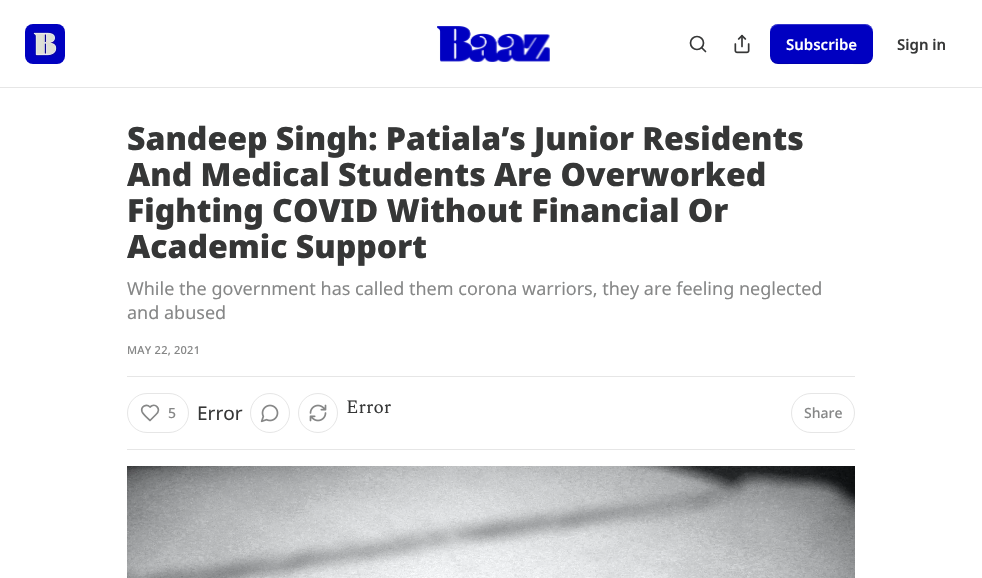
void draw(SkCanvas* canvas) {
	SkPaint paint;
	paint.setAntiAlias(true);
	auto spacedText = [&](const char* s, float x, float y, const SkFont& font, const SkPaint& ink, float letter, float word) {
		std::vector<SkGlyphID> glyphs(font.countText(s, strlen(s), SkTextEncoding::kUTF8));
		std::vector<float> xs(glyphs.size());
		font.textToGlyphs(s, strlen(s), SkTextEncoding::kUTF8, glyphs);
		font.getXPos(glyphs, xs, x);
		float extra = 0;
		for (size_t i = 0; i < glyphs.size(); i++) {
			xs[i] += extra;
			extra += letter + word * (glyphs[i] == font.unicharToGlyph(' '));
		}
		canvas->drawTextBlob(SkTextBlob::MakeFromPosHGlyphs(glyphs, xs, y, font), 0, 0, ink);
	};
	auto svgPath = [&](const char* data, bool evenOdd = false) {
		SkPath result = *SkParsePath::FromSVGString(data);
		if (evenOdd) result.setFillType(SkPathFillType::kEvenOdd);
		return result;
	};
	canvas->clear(0xffffffff);
	paint.setColor(0xffe6e6e6);
	canvas->drawRect(SkRect::MakeXYWH(0, 87, 982, 1), paint);
	canvas->drawImageRect(SkImages::DeferredFromEncodedData(SkData::MakeFromFileName("img1.png")), SkRect::MakeXYWH(25, 24, 40, 40), SkSamplingOptions());
	canvas->drawImageRect(SkImages::DeferredFromEncodedData(SkData::MakeFromFileName("img2.png")), SkRect::MakeXYWH(437, 26, 113, 36), SkSamplingOptions());
	paint.setStroke(true);
	paint.setStrokeWidth(1.7);
	paint.setColor(0xff363737);
	canvas->drawCircle(697, 43, 6.5, paint);
	paint.setStrokeCap(SkPaint::kRound_Cap);
	paint.setStrokeJoin(SkPaint::kRound_Join);
	canvas->drawPath(svgPath("M705.5 51.5L702 48"), paint);
	canvas->drawImageRect(SkImages::DeferredFromEncodedData(SkData::MakeFromFileName("img3.png")), SkRect::MakeXYWH(734, 34, 16, 20), SkSamplingOptions());
	paint.setStroke(false);
	paint.setColor(0xff0000c1);
	canvas->drawRoundRect(SkRect::MakeXYWH(770, 24, 103, 40), 8, 8, paint);
	paint.setColor(0x1a000000);
	canvas->drawPath(svgPath("M770 55C770 67 784 64 792 64H850C859 64 873 67 873 55C873 59 869 63 865 63H778C774 63 770 59 770 55Z"), paint);
	paint.setColor(0x33ffffff);
	canvas->drawPath(svgPath("M778 25H865C869 25 873 29 873 33C873 21 859 24 850 24H792C784 24 770 21 770 33C770 29 774 25 778 25Z"), paint);
	SkFont f1(fontMgr->matchFamilyStyle("Noto Sans", SkFontStyle(600, SkFontStyle::kNormal_Width, SkFontStyle::kUpright_Slant)), 15);
	f1.setSubpixel(true);
	paint.setColor(0xffffffff);
	canvas->drawString("Subscribe", 786, 50, f1, paint);
	paint.setColor(0xff363737);
	canvas->drawString("Sign in", 897, 50, f1, paint);
	SkFont f2(fontMgr->matchFamilyStyle("Noto Sans", SkFontStyle(900, SkFontStyle::kNormal_Width, SkFontStyle::kUpright_Slant)), 32);
	f2.setSubpixel(true);
	canvas->drawString("Sandeep Singh: Patiala’s Junior Residents", 127, 150, f2, paint);
	canvas->drawString("And Medical Students Are Overworked", 127, 186, f2, paint);
	canvas->drawString("Fighting COVID Without Financial Or", 127, 222, f2, paint);
	canvas->drawString("Academic Support", 127, 258, f2, paint);
	SkFont f3(fontMgr->matchFamilyStyle("Noto Sans", SkFontStyle::Normal()), 18);
	f3.setSubpixel(true);
	paint.setColor(0xff868787);
	canvas->drawString("While the government has called them corona warriors, they are feeling neglected", 127, 295, f3, paint);
	canvas->drawString("and abused", 127, 319, f3, paint);
	SkFont f4(fontMgr->matchFamilyStyle("Noto Sans", SkFontStyle(500, SkFontStyle::kNormal_Width, SkFontStyle::kUpright_Slant)), 11);
	f4.setSubpixel(true);
	spacedText("MAY 22, 2021", 127, 354, f4, paint, 0.25, 0);
	paint.setColor(0xffe6e6e6);
	canvas->drawRect(SkRect::MakeXYWH(127, 376, 728, 1), paint);
	canvas->drawRect(SkRect::MakeXYWH(127, 449, 728, 1), paint);
	paint.setStroke(true);
	paint.setStrokeWidth(1);
	paint.setStrokeCap(SkPaint::kButt_Cap);
	paint.setStrokeJoin(SkPaint::kMiter_Join);
	canvas->drawRoundRect(SkRect::MakeXYWH(127.5, 393.5, 61, 39), 19.5, 19.5, paint);
	paint.setStrokeWidth(1.7);
	paint.setStrokeCap(SkPaint::kRound_Cap);
	paint.setStrokeJoin(SkPaint::kRound_Join);
	paint.setColor(0xff868787);
	canvas->drawPath(svgPath("M156 414.5C162 408.5 155 402.5 150 407C146.5 403.5 140.5 406.5 142 411.5C143 414.5 148 418.5 150 420.5Z"), paint);
	SkFont f5(fontMgr->matchFamilyStyle("Noto Sans", SkFontStyle(500, SkFontStyle::kNormal_Width, SkFontStyle::kUpright_Slant)), 14);
	f5.setSubpixel(true);
	paint.setStroke(false);
	canvas->drawString("5", 168, 418, f5, paint);
	SkFont f6(fontMgr->matchFamilyStyle("Noto Sans", SkFontStyle::Normal()), 19);
	f6.setSubpixel(true);
	paint.setColor(0xff363737);
	canvas->drawString("Error", 197, 420, f6, paint);
	paint.setStroke(true);
	paint.setStrokeWidth(1);
	paint.setStrokeCap(SkPaint::kButt_Cap);
	paint.setStrokeJoin(SkPaint::kMiter_Join);
	paint.setColor(0xffe6e6e6);
	canvas->drawCircle(270, 413, 19.5, paint);
	canvas->drawImageRect(SkImages::DeferredFromEncodedData(SkData::MakeFromFileName("img4.png")), SkRect::MakeXYWH(260, 404, 19, 19), SkSamplingOptions());
	canvas->drawCircle(318, 413, 19.5, paint);
	canvas->drawImageRect(SkImages::DeferredFromEncodedData(SkData::MakeFromFileName("img5.png")), SkRect::MakeXYWH(309, 404, 18, 18), SkSamplingOptions());
	SkFont f7(fontMgr->matchFamilyStyle("Spectral", SkFontStyle::Normal()), 19);
	f7.setSubpixel(true);
	paint.setStroke(false);
	paint.setColor(0xff363737);
	canvas->drawString("Error", 346, 413, f7, paint);
	paint.setStroke(true);
	paint.setColor(0xffe6e6e6);
	canvas->drawRoundRect(SkRect::MakeXYWH(791.5, 393.5, 63, 39), 19.5, 19.5, paint);
	paint.setStroke(false);
	paint.setColor(0xff868787);
	canvas->drawString("Share", 804, 418, f5, paint);
	canvas->drawImageRect(SkImages::DeferredFromEncodedData(SkData::MakeFromFileName("img6.png")), SkRect::MakeXYWH(127, 466, 728, 112), SkSamplingOptions());
}
